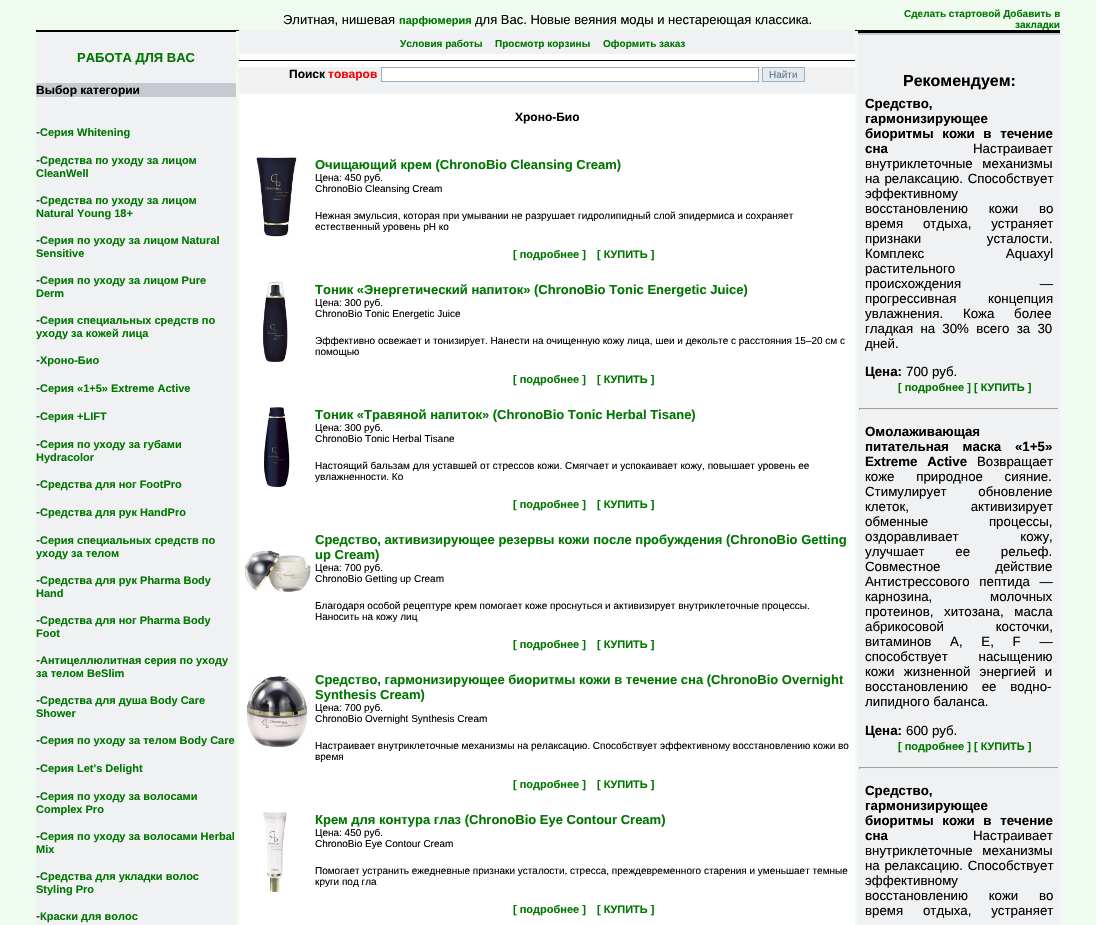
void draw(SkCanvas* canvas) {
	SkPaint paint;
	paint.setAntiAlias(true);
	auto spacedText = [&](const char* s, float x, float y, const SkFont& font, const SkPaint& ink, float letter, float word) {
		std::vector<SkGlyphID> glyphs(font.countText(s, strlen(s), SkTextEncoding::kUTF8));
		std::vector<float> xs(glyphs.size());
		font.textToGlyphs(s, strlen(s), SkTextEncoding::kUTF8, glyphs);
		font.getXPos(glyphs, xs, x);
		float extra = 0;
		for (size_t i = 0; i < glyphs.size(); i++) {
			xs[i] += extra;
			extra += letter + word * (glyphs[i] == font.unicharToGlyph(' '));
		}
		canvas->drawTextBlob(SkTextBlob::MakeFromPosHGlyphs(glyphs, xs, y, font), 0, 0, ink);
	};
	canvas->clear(0xffeefbee);
	SkFont f1(fontMgr->matchFamilyStyle("Liberation Sans", SkFontStyle::Normal()), 13);
	f1.setSubpixel(true);
	paint.setColor(0xff000000);
	canvas->drawString("Элитная, нишевая", 283, 24, f1, paint);
	SkFont f2(fontMgr->matchFamilyStyle("Liberation Sans", SkFontStyle::Bold()), 11);
	f2.setSubpixel(true);
	paint.setColor(0xff007700);
	canvas->drawString("парфюмерия", 399, 24, f2, paint);
	paint.setColor(0xff000000);
	canvas->drawString("для Вас. Новые веяния моды и нестареющая классика.", 475, 24, f1, paint);
	SkFont f3(fontMgr->matchFamilyStyle("Liberation Sans", SkFontStyle::Bold()), 10);
	f3.setSubpixel(true);
	paint.setColor(0xff007700);
	canvas->drawString("Сделать стартовой Добавить в", 904, 17, f3, paint);
	canvas->drawString("закладки", 1015, 28, f3, paint);
	paint.setColor(0xff000000);
	canvas->drawRect(SkRect::MakeXYWH(236, 30, 3, 1), paint);
	canvas->drawRect(SkRect::MakeXYWH(855, 30, 3, 1), paint);
	paint.setColor(0xfff0f1f3);
	canvas->drawRect(SkRect::MakeXYWH(36, 32, 200, 893), paint);
	paint.setColor(0xff000000);
	canvas->drawRect(SkRect::MakeXYWH(36, 30, 200, 2), paint);
	SkFont f4(fontMgr->matchFamilyStyle("Liberation Sans", SkFontStyle::Bold()), 13);
	f4.setSubpixel(true);
	paint.setColor(0xff007700);
	canvas->drawString("РАБОТА ДЛЯ ВАС", 77, 62, f4, paint);
	paint.setColor(0xffc6c9d0);
	canvas->drawRect(SkRect::MakeXYWH(36, 83, 200, 14), paint);
	SkFont f5(fontMgr->matchFamilyStyle("Liberation Sans", SkFontStyle::Bold()), 12);
	f5.setSubpixel(true);
	paint.setColor(0xff000000);
	canvas->drawString("Выбор категории", 36, 94, f5, paint);
	SkFont f6(fontMgr->matchFamilyStyle("Liberation Sans", SkFontStyle::Normal()), 12);
	f6.setSubpixel(true);
	canvas->drawString("-", 36, 136, f6, paint);
	paint.setColor(0xff007700);
	canvas->drawString("Серия Whitening", 40, 136, f2, paint);
	paint.setColor(0xff000000);
	canvas->drawString("-", 36, 164, f6, paint);
	paint.setColor(0xff007700);
	canvas->drawString("Средства по уходу за лицом", 40, 164, f2, paint);
	canvas->drawString("CleanWell", 36, 177, f2, paint);
	paint.setColor(0xff000000);
	canvas->drawString("-", 36, 204, f6, paint);
	paint.setColor(0xff007700);
	canvas->drawString("Средства по уходу за лицом", 40, 204, f2, paint);
	canvas->drawString("Natural Young 18+", 36, 217, f2, paint);
	paint.setColor(0xff000000);
	canvas->drawString("-", 36, 244, f6, paint);
	paint.setColor(0xff007700);
	canvas->drawString("Серия по уходу за лицом Natural", 40, 244, f2, paint);
	canvas->drawString("Sensitive", 36, 257, f2, paint);
	paint.setColor(0xff000000);
	canvas->drawString("-", 36, 284, f6, paint);
	paint.setColor(0xff007700);
	canvas->drawString("Серия по уходу за лицом Pure", 40, 284, f2, paint);
	canvas->drawString("Derm", 36, 297, f2, paint);
	paint.setColor(0xff000000);
	canvas->drawString("-", 36, 324, f6, paint);
	paint.setColor(0xff007700);
	canvas->drawString("Серия специальных средств по", 40, 324, f2, paint);
	canvas->drawString("уходу за кожей лица", 36, 337, f2, paint);
	paint.setColor(0xff000000);
	canvas->drawString("-", 36, 364, f6, paint);
	paint.setColor(0xff007700);
	canvas->drawString("Хроно-Био", 40, 364, f2, paint);
	paint.setColor(0xff000000);
	canvas->drawString("-", 36, 392, f6, paint);
	paint.setColor(0xff007700);
	canvas->drawString("Серия «1+5» Extreme Active", 40, 392, f2, paint);
	paint.setColor(0xff000000);
	canvas->drawString("-", 36, 420, f6, paint);
	paint.setColor(0xff007700);
	canvas->drawString("Серия +LIFT", 40, 420, f2, paint);
	paint.setColor(0xff000000);
	canvas->drawString("-", 36, 448, f6, paint);
	paint.setColor(0xff007700);
	canvas->drawString("Серия по уходу за губами", 40, 448, f2, paint);
	canvas->drawString("Hydracolor", 36, 461, f2, paint);
	paint.setColor(0xff000000);
	canvas->drawString("-", 36, 488, f6, paint);
	paint.setColor(0xff007700);
	canvas->drawString("Средства для ног FootPro", 40, 488, f2, paint);
	paint.setColor(0xff000000);
	canvas->drawString("-", 36, 516, f6, paint);
	paint.setColor(0xff007700);
	canvas->drawString("Средства для рук HandPro", 40, 516, f2, paint);
	paint.setColor(0xff000000);
	canvas->drawString("-", 36, 544, f6, paint);
	paint.setColor(0xff007700);
	canvas->drawString("Серия специальных средств по", 40, 544, f2, paint);
	canvas->drawString("уходу за телом", 36, 557, f2, paint);
	paint.setColor(0xff000000);
	canvas->drawString("-", 36, 584, f6, paint);
	paint.setColor(0xff007700);
	canvas->drawString("Средства для рук Pharma Body", 40, 584, f2, paint);
	canvas->drawString("Hand", 36, 597, f2, paint);
	paint.setColor(0xff000000);
	canvas->drawString("-", 36, 624, f6, paint);
	paint.setColor(0xff007700);
	canvas->drawString("Средства для ног Pharma Body", 40, 624, f2, paint);
	canvas->drawString("Foot", 36, 637, f2, paint);
	paint.setColor(0xff000000);
	canvas->drawString("-", 36, 664, f6, paint);
	paint.setColor(0xff007700);
	canvas->drawString("Антицеллюлитная серия по уходу", 40, 664, f2, paint);
	canvas->drawString("за телом BeSlim", 36, 677, f2, paint);
	paint.setColor(0xff000000);
	canvas->drawString("-", 36, 704, f6, paint);
	paint.setColor(0xff007700);
	canvas->drawString("Средства для душа Body Care", 40, 704, f2, paint);
	canvas->drawString("Shower", 36, 717, f2, paint);
	paint.setColor(0xff000000);
	canvas->drawString("-", 36, 744, f6, paint);
	paint.setColor(0xff007700);
	canvas->drawString("Серия по уходу за телом Body Care", 40, 744, f2, paint);
	paint.setColor(0xff000000);
	canvas->drawString("-", 36, 772, f6, paint);
	paint.setColor(0xff007700);
	canvas->drawString("Серия Let's Delight", 40, 772, f2, paint);
	paint.setColor(0xff000000);
	canvas->drawString("-", 36, 800, f6, paint);
	paint.setColor(0xff007700);
	canvas->drawString("Серия по уходу за волосами", 40, 800, f2, paint);
	canvas->drawString("Complex Pro", 36, 813, f2, paint);
	paint.setColor(0xff000000);
	canvas->drawString("-", 36, 840, f6, paint);
	paint.setColor(0xff007700);
	canvas->drawString("Серия по уходу за волосами Herbal", 40, 840, f2, paint);
	canvas->drawString("Mix", 36, 853, f2, paint);
	paint.setColor(0xff000000);
	canvas->drawString("-", 36, 880, f6, paint);
	paint.setColor(0xff007700);
	canvas->drawString("Средства для укладки волос", 40, 880, f2, paint);
	canvas->drawString("Styling Pro", 36, 893, f2, paint);
	paint.setColor(0xff000000);
	canvas->drawString("-", 36, 920, f6, paint);
	paint.setColor(0xff007700);
	canvas->drawString("Краски для волос", 40, 920, f2, paint);
	paint.setColor(0xffffffff);
	canvas->drawRect(SkRect::MakeXYWH(239, 54, 616, 871), paint);
	paint.setColor(0xfff0f1f3);
	canvas->drawRect(SkRect::MakeXYWH(239, 30, 616, 24), paint);
	paint.setColor(0xff007700);
	canvas->drawString("Условия работы", 400, 47, f3, paint);
	canvas->drawString("Просмотр корзины", 495, 47, f3, paint);
	canvas->drawString("Оформить заказ", 603, 47, f3, paint);
	paint.setColor(0xff000000);
	canvas->drawRect(SkRect::MakeXYWH(239, 60, 616, 1), paint);
	paint.setColor(0xfff0f1f3);
	canvas->drawRect(SkRect::MakeXYWH(239, 67, 616, 27), paint);
	paint.setColor(0xff000000);
	canvas->drawString("Поиск", 289, 78, f5, paint);
	paint.setColor(0xffff0000);
	canvas->drawString("товаров", 328, 78, f5, paint);
	paint.setColor(0xffffffff);
	canvas->drawRect(SkRect::MakeXYWH(381.5, 67.5, 377, 14), paint);
	paint.setStroke(true);
	paint.setStrokeWidth(1);
	paint.setColor(0xff9baec1);
	canvas->drawRect(SkRect::MakeXYWH(381.5, 67.5, 377, 14), paint);
	paint.setStroke(false);
	paint.setColor(0xffe4eaed);
	canvas->drawRect(SkRect::MakeXYWH(762.5, 67.5, 42, 14), paint);
	paint.setStroke(true);
	paint.setColor(0xff9baec1);
	canvas->drawRect(SkRect::MakeXYWH(762.5, 67.5, 42, 14), paint);
	SkFont f7(fontMgr->matchFamilyStyle("Liberation Sans", SkFontStyle::Normal()), 10);
	f7.setSubpixel(true);
	paint.setStroke(false);
	paint.setColor(0xff5e778e);
	canvas->drawString("Найти", 769, 78, f7, paint);
	paint.setColor(0xff000000);
	canvas->drawString("Хроно-Био", 515, 121, f5, paint);
	canvas->drawImageRect(SkImages::DeferredFromEncodedData(SkData::MakeFromFileName("img1.png")), SkRect::MakeXYWH(256, 157, 41, 80), SkSamplingOptions());
	paint.setColor(0xff007700);
	canvas->drawString("Очищающий крем (ChronoBio Cleansing Cream)", 315, 169, f4, paint);
	paint.setColor(0xff000000);
	canvas->drawString("Цена: 450 руб.", 315, 181, f7, paint);
	canvas->drawString("ChronoBio Cleansing Cream", 315, 192, f7, paint);
	canvas->drawString("Нежная эмульсия, которая при умывании не разрушает гидролипидный слой эпидермиса и сохраняет", 315, 219, f7, paint);
	canvas->drawString("естественный уровень рН ко", 315, 230, f7, paint);
	paint.setColor(0xff007700);
	canvas->drawString("[ подробнее ]", 513, 258, f2, paint);
	canvas->drawString("[ КУПИТЬ ]", 597, 258, f2, paint);
	canvas->drawImageRect(SkImages::DeferredFromEncodedData(SkData::MakeFromFileName("img2.png")), SkRect::MakeXYWH(263, 282, 25, 80), SkSamplingOptions());
	canvas->drawString("Тоник «Энергетический напиток» (ChronoBio Tоnic Energetic Juice)", 315, 294, f4, paint);
	paint.setColor(0xff000000);
	canvas->drawString("Цена: 300 руб.", 315, 306, f7, paint);
	canvas->drawString("ChronoBio Tоnic Energetic Juice", 315, 317, f7, paint);
	canvas->drawString("Эффективно освежает и тонизирует. Нанести на очищенную кожу лица, шеи и декольте с расстояния 15–20 см с", 315, 344, f7, paint);
	canvas->drawString("помощью", 315, 355, f7, paint);
	paint.setColor(0xff007700);
	canvas->drawString("[ подробнее ]", 513, 383, f2, paint);
	canvas->drawString("[ КУПИТЬ ]", 597, 383, f2, paint);
	canvas->drawImageRect(SkImages::DeferredFromEncodedData(SkData::MakeFromFileName("img3.png")), SkRect::MakeXYWH(264, 407, 26, 80), SkSamplingOptions());
	canvas->drawString("Тоник «Травяной напиток» (ChronoBio Tonic Herbal Tisane)", 315, 419, f4, paint);
	paint.setColor(0xff000000);
	canvas->drawString("Цена: 300 руб.", 315, 431, f7, paint);
	canvas->drawString("ChronoBio Tonic Herbal Tisane", 315, 442, f7, paint);
	canvas->drawString("Настоящий бальзам для уставшей от стрессов кожи. Смягчает и успокаивает кожу, повышает уровень ее", 315, 469, f7, paint);
	canvas->drawString("увлажненности. Ко", 315, 480, f7, paint);
	paint.setColor(0xff007700);
	canvas->drawString("[ подробнее ]", 513, 508, f2, paint);
	canvas->drawString("[ КУПИТЬ ]", 597, 508, f2, paint);
	canvas->drawImageRect(SkImages::DeferredFromEncodedData(SkData::MakeFromFileName("img4.png")), SkRect::MakeXYWH(244, 550, 67, 42), SkSamplingOptions());
	canvas->drawString("Средство, активизирующее резервы кожи после пробуждения (ChronoBio Getting", 315, 544, f4, paint);
	canvas->drawString("up Cream)", 315, 559, f4, paint);
	paint.setColor(0xff000000);
	canvas->drawString("Цена: 700 руб.", 315, 571, f7, paint);
	canvas->drawString("ChronoBio Getting up Cream", 315, 582, f7, paint);
	canvas->drawString("Благодаря особой рецептуре крем помогает коже проснуться и активизирует внутриклеточные процессы.", 315, 609, f7, paint);
	canvas->drawString("Наносить на кожу лиц", 315, 620, f7, paint);
	paint.setColor(0xff007700);
	canvas->drawString("[ подробнее ]", 513, 648, f2, paint);
	canvas->drawString("[ КУПИТЬ ]", 597, 648, f2, paint);
	canvas->drawImageRect(SkImages::DeferredFromEncodedData(SkData::MakeFromFileName("img5.png")), SkRect::MakeXYWH(246, 676, 62, 71), SkSamplingOptions());
	canvas->drawString("Средство, гармонизирующее биоритмы кожи в течение сна (ChronoBio Overnight", 315, 684, f4, paint);
	canvas->drawString("Synthesis Cream)", 315, 699, f4, paint);
	paint.setColor(0xff000000);
	canvas->drawString("Цена: 700 руб.", 315, 711, f7, paint);
	canvas->drawString("ChronoBio Overnight Synthesis Cream", 315, 722, f7, paint);
	canvas->drawString("Настраивает внутриклеточные механизмы на релаксацию. Способствует эффективному восстановлению кожи во", 315, 749, f7, paint);
	canvas->drawString("время", 315, 760, f7, paint);
	paint.setColor(0xff007700);
	canvas->drawString("[ подробнее ]", 513, 788, f2, paint);
	canvas->drawString("[ КУПИТЬ ]", 597, 788, f2, paint);
	canvas->drawImageRect(SkImages::DeferredFromEncodedData(SkData::MakeFromFileName("img6.png")), SkRect::MakeXYWH(263, 812, 24, 80), SkSamplingOptions());
	canvas->drawString("Крем для контура глаз (ChronoBio Eye Contour Cream)", 315, 824, f4, paint);
	paint.setColor(0xff000000);
	canvas->drawString("Цена: 450 руб.", 315, 836, f7, paint);
	canvas->drawString("ChronoBio Eye Contour Cream", 315, 847, f7, paint);
	canvas->drawString("Помогает устранить ежедневные признаки усталости, стресса, преждевременного старения и уменьшает темные", 315, 874, f7, paint);
	canvas->drawString("круги под гла", 315, 885, f7, paint);
	paint.setColor(0xff007700);
	canvas->drawString("[ подробнее ]", 513, 913, f2, paint);
	canvas->drawString("[ КУПИТЬ ]", 597, 913, f2, paint);
	paint.setColor(0xfff0f1f3);
	canvas->drawRect(SkRect::MakeXYWH(858, 35, 202, 890), paint);
	paint.setColor(0xff000000);
	canvas->drawRect(SkRect::MakeXYWH(858, 30, 202, 3), paint);
	paint.setColor(0xffc6c9d0);
	canvas->drawRect(SkRect::MakeXYWH(858, 33, 202, 2), paint);
	SkFont f8(fontMgr->matchFamilyStyle("Liberation Sans", SkFontStyle::Bold()), 16);
	f8.setSubpixel(true);
	paint.setColor(0xff000000);
	canvas->drawString("Рекомендуем:", 903, 86, f8, paint);
	SkFont f9(fontMgr->matchFamilyStyle("Liberation Sans", SkFontStyle::Bold()), 13.3);
	f9.setSubpixel(true);
	canvas->drawString("Средство,", 865, 108, f9, paint);
	canvas->drawString("гармонизирующее", 865, 123, f9, paint);
	spacedText("биоритмы кожи в течение", 865, 138, f9, paint, 0, 5);
	canvas->drawString("сна", 865, 153, f9, paint);
	SkFont f10(fontMgr->matchFamilyStyle("Liberation Sans", SkFontStyle::Normal()), 13.3);
	f10.setSubpixel(true);
	canvas->drawString("Настраивает", 973, 153, f10, paint);
	spacedText("внутриклеточные механизмы", 865, 168, f10, paint, 0, 6);
	spacedText("на релаксацию. Способствует", 865, 183, f10, paint, 0, 1);
	canvas->drawString("эффективному", 865, 198, f10, paint);
	spacedText("восстановлению кожи во", 865, 213, f10, paint, 0, 17);
	spacedText("время отдыха, устраняет", 865, 228, f10, paint, 0, 16);
	spacedText("признаки усталости.", 865, 243, f10, paint, 0, 62);
	spacedText("Комплекс Aquaxyl", 865, 258, f10, paint, 0, 78);
	canvas->drawString("растительного", 865, 273, f10, paint);
	spacedText("происхождения —", 865, 288, f10, paint, 0, 75);
	spacedText("прогрессивная концепция", 865, 303, f10, paint, 0, 28);
	spacedText("увлажнения. Кожа более", 865, 318, f10, paint, 0, 16);
	spacedText("гладкая на 30% всего за 30", 865, 333, f10, paint, 0, 3.5);
	canvas->drawString("дней.", 865, 348, f10, paint);
	canvas->drawString("Цена:", 865, 376, f9, paint);
	canvas->drawString("700 руб.", 906, 376, f10, paint);
	paint.setColor(0xff007700);
	canvas->drawString("[ подробнее ]", 898, 391, f2, paint);
	canvas->drawString("[ КУПИТЬ ]", 974, 391, f2, paint);
	paint.setColor(0xff9f9f9f);
	canvas->drawRect(SkRect::MakeXYWH(859, 408, 200, 1), paint);
	paint.setColor(0xffeeeeee);
	canvas->drawRect(SkRect::MakeXYWH(1058, 408, 1, 2), paint);
	canvas->drawRect(SkRect::MakeXYWH(859, 409, 200, 1), paint);
	paint.setColor(0xff9f9f9f);
	canvas->drawRect(SkRect::MakeXYWH(859, 408, 1, 2), paint);
	paint.setColor(0xff000000);
	canvas->drawString("Омолаживающая", 865, 436, f9, paint);
	spacedText("питательная маска «1+5»", 865, 451, f9, paint, 0, 10);
	spacedText("Extreme Active", 865, 466, f9, paint, 0, 6);
	canvas->drawString("Возвращает", 977, 466, f10, paint);
	spacedText("коже природное сияние.", 865, 481, f10, paint, 0, 18);
	spacedText("Стимулирует обновление", 865, 496, f10, paint, 0, 28);
	spacedText("клеток, активизирует", 865, 511, f10, paint, 0, 58);
	spacedText("обменные процессы,", 865, 526, f10, paint, 0, 57);
	spacedText("оздоравливает кожу,", 865, 541, f10, paint, 0, 58);
	spacedText("улучшает ее рельеф.", 865, 556, f10, paint, 0, 27);
	spacedText("Совместное действие", 865, 571, f10, paint, 0, 51);
	spacedText("Антистрессового пептида —", 865, 586, f10, paint, 0, 6);
	spacedText("карнозина, молочных", 865, 601, f10, paint, 0, 54);
	spacedText("протеинов, хитозана, масла", 865, 616, f10, paint, 0, 7);
	spacedText("абрикосовой косточки,", 865, 631, f10, paint, 0, 48);
	spacedText("витаминов А, Е, F —", 865, 646, f10, paint, 0, 15);
	spacedText("способствует насыщению", 865, 661, f10, paint, 0, 27);
	spacedText("кожи жизненной энергией и", 865, 676, f10, paint, 0, 5.5);
	spacedText("восстановлению ее водно-", 865, 691, f10, paint, 0, 10);
	canvas->drawString("липидного баланса.", 865, 706, f10, paint);
	canvas->drawString("Цена:", 865, 735, f9, paint);
	canvas->drawString("600 руб.", 906, 735, f10, paint);
	paint.setColor(0xff007700);
	canvas->drawString("[ подробнее ]", 898, 750, f2, paint);
	canvas->drawString("[ КУПИТЬ ]", 974, 750, f2, paint);
	paint.setColor(0xff9f9f9f);
	canvas->drawRect(SkRect::MakeXYWH(859, 767, 200, 1), paint);
	paint.setColor(0xffeeeeee);
	canvas->drawRect(SkRect::MakeXYWH(1058, 767, 1, 2), paint);
	canvas->drawRect(SkRect::MakeXYWH(859, 768, 200, 1), paint);
	paint.setColor(0xff9f9f9f);
	canvas->drawRect(SkRect::MakeXYWH(859, 767, 1, 2), paint);
	paint.setColor(0xff000000);
	canvas->drawString("Средство,", 865, 795, f9, paint);
	canvas->drawString("гармонизирующее", 865, 810, f9, paint);
	spacedText("биоритмы кожи в течение", 865, 825, f9, paint, 0, 5);
	canvas->drawString("сна", 865, 840, f9, paint);
	canvas->drawString("Настраивает", 973, 840, f10, paint);
	spacedText("внутриклеточные механизмы", 865, 855, f10, paint, 0, 6);
	spacedText("на релаксацию. Способствует", 865, 870, f10, paint, 0, 1);
	canvas->drawString("эффективному", 865, 885, f10, paint);
	spacedText("восстановлению кожи во", 865, 900, f10, paint, 0, 17);
	spacedText("время отдыха, устраняет", 865, 915, f10, paint, 0, 16);
}
